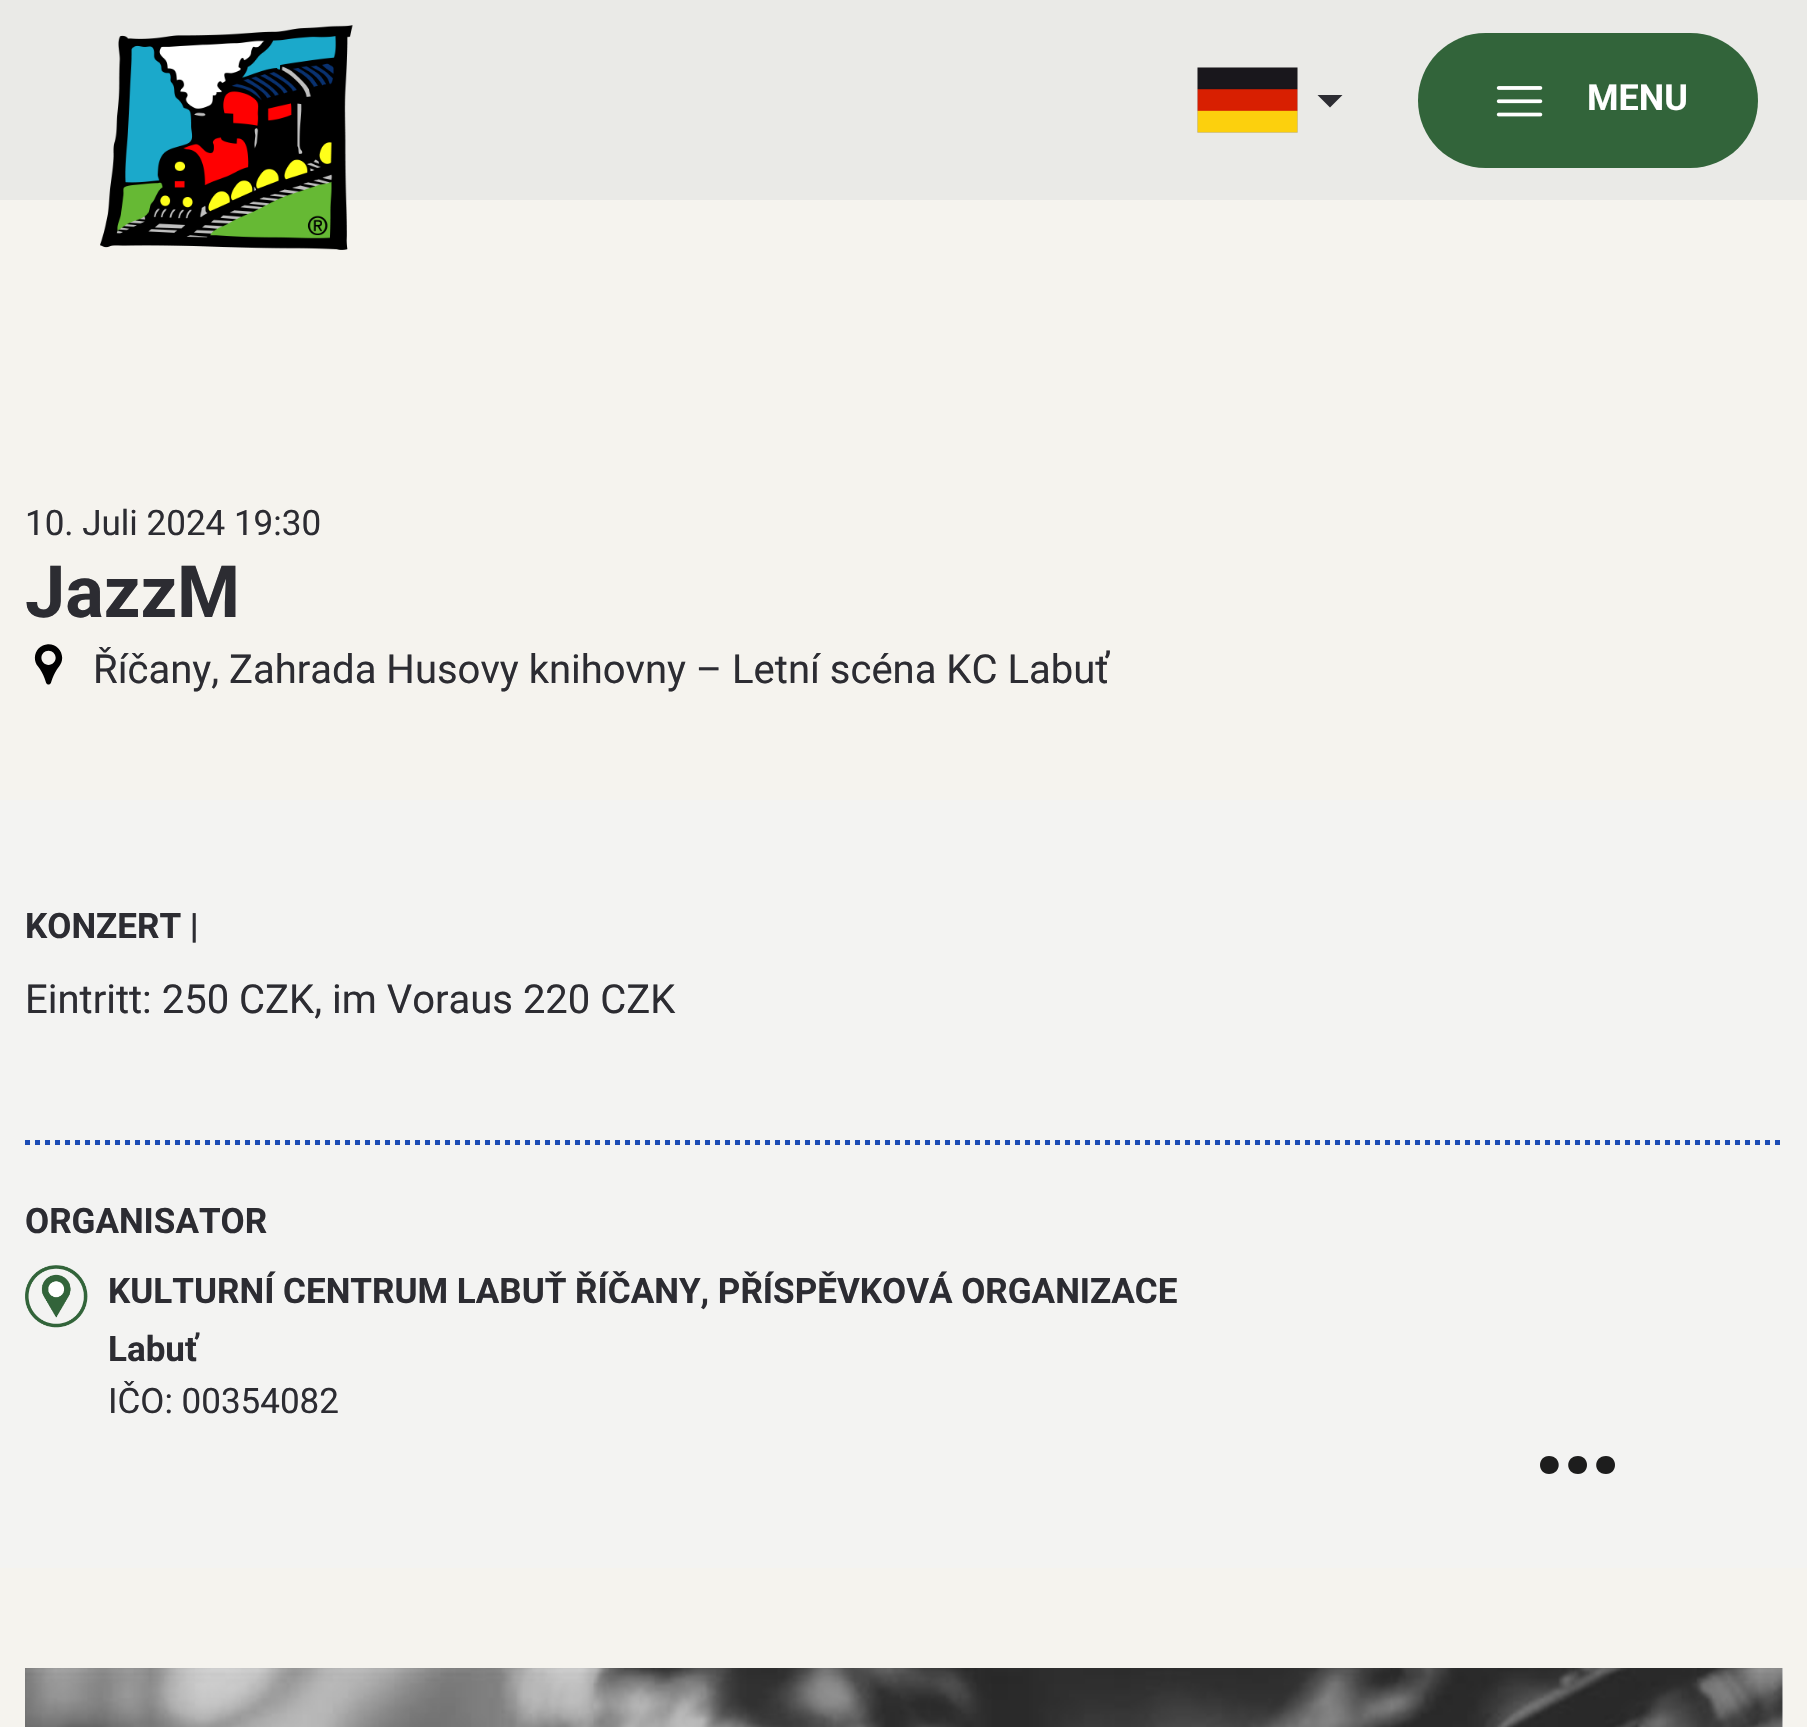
void draw(SkCanvas* canvas) {
	SkPaint paint;
	paint.setAntiAlias(true);
	auto svgPath = [&](const char* data, bool evenOdd = false) {
		SkPath result = *SkParsePath::FromSVGString(data);
		if (evenOdd) result.setFillType(SkPathFillType::kEvenOdd);
		return result;
	};
	canvas->clear(0xfff5f3ee);
	paint.setColor(0xffeaeae7);
	canvas->drawRect(SkRect::MakeXYWH(0, 0, 1807, 200), paint);
	canvas->drawImageRect(SkImages::DeferredFromEncodedData(SkData::MakeFromFileName("img1.png")), SkRect::MakeXYWH(100, 25, 253, 225), SkSamplingOptions());
	canvas->drawImageRect(SkImages::DeferredFromEncodedData(SkData::MakeFromFileName("img2.png")), SkRect::MakeXYWH(1197, 67, 101, 66), SkSamplingOptions());
	paint.setColor(0xff2c2c32);
	canvas->drawPath(svgPath("M1317.5 95H1342.5L1330 107.5Z"), paint);
	paint.setColor(0xff32643a);
	canvas->drawRoundRect(SkRect::MakeXYWH(1418, 33, 340, 135), 67.5, 67.5, paint);
	canvas->drawImageRect(SkImages::DeferredFromEncodedData(SkData::MakeFromFileName("img3.png")), SkRect::MakeXYWH(1496, 86, 47, 31), SkSamplingOptions());
	SkFont f1(fontMgr->matchFamilyStyle("Roboto", SkFontStyle::Bold()), 36);
	f1.setSubpixel(true);
	paint.setColor(0xffffffff);
	canvas->drawString("MENU", 1587, 110, f1, paint);
	SkFont f2(fontMgr->matchFamilyStyle("Roboto", SkFontStyle::Normal()), 35);
	f2.setSubpixel(true);
	paint.setColor(0xff2c2c32);
	canvas->drawString("10. Juli 2024 19:30", 25, 535, f2, paint);
	SkFont f3(fontMgr->matchFamilyStyle("Roboto", SkFontStyle::Bold()), 72);
	f3.setSubpixel(true);
	canvas->drawString("JazzM", 25, 617, f3, paint);
	canvas->drawImageRect(SkImages::DeferredFromEncodedData(SkData::MakeFromFileName("img4.png")), SkRect::MakeXYWH(34, 644, 29, 41), SkSamplingOptions());
	SkFont f4(fontMgr->matchFamilyStyle("Roboto", SkFontStyle::Normal()), 40);
	f4.setSubpixel(true);
	canvas->drawString("Říčany, Zahrada Husovy knihovny – Letní scéna KC Labuť", 93, 683, f4, paint);
	paint.setColor(0xfff3f3f2);
	canvas->drawRect(SkRect::MakeXYWH(0, 800, 1807, 768), paint);
	SkFont f5(fontMgr->matchFamilyStyle("Roboto", SkFontStyle::Bold()), 35);
	f5.setSubpixel(true);
	paint.setColor(0xff2c2c32);
	canvas->drawString("KONZERT |", 25, 938, f5, paint);
	canvas->drawString("Eintritt: 250 CZK, im Voraus 220 CZK", 25, 1013, f4, paint);
	paint.setStroke(true);
	paint.setStrokeWidth(5);
	paint.setColor(0xff1b4cb5);
	paint.setPathEffect(SkDashPathEffect::Make({{5, 5}}, 0));
	canvas->drawPath(svgPath("M25 1142.5H1782.5"), paint);
	paint.setPathEffect(nullptr);
	paint.setStroke(false);
	paint.setColor(0xff2c2c32);
	canvas->drawString("ORGANISATOR", 25, 1233, f5, paint);
	canvas->drawImageRect(SkImages::DeferredFromEncodedData(SkData::MakeFromFileName("img5.png")), SkRect::MakeXYWH(25, 1265, 63, 63), SkSamplingOptions());
	canvas->drawString("KULTURNÍ CENTRUM LABUŤ ŘÍČANY, PŘÍSPĚVKOVÁ ORGANIZACE", 108, 1303, f5, paint);
	canvas->drawString("Labuť", 108, 1361, f5, paint);
	canvas->drawString("IČO: 00354082", 108, 1413, f2, paint);
	paint.setColor(0xff1d1d1d);
	canvas->drawPath(svgPath("M1549 1456C1537 1456 1537 1474 1549 1474C1562 1474 1562 1456 1549 1456ZM1606 1456C1593 1456 1593 1474 1606 1474C1618 1474 1618 1456 1606 1456ZM1578 1456C1565 1456 1565 1474 1578 1474C1590 1474 1590 1456 1578 1456Z", true), paint);
	paint.setColor(0xffffffff);
	canvas->drawRect(SkRect::MakeXYWH(1782, 1668, 1, 59), paint);
	canvas->drawImageRect(SkImages::DeferredFromEncodedData(SkData::MakeFromFileName("img6.png")), SkRect::MakeXYWH(25, 1668, 1758, 59), SkSamplingOptions());
}
